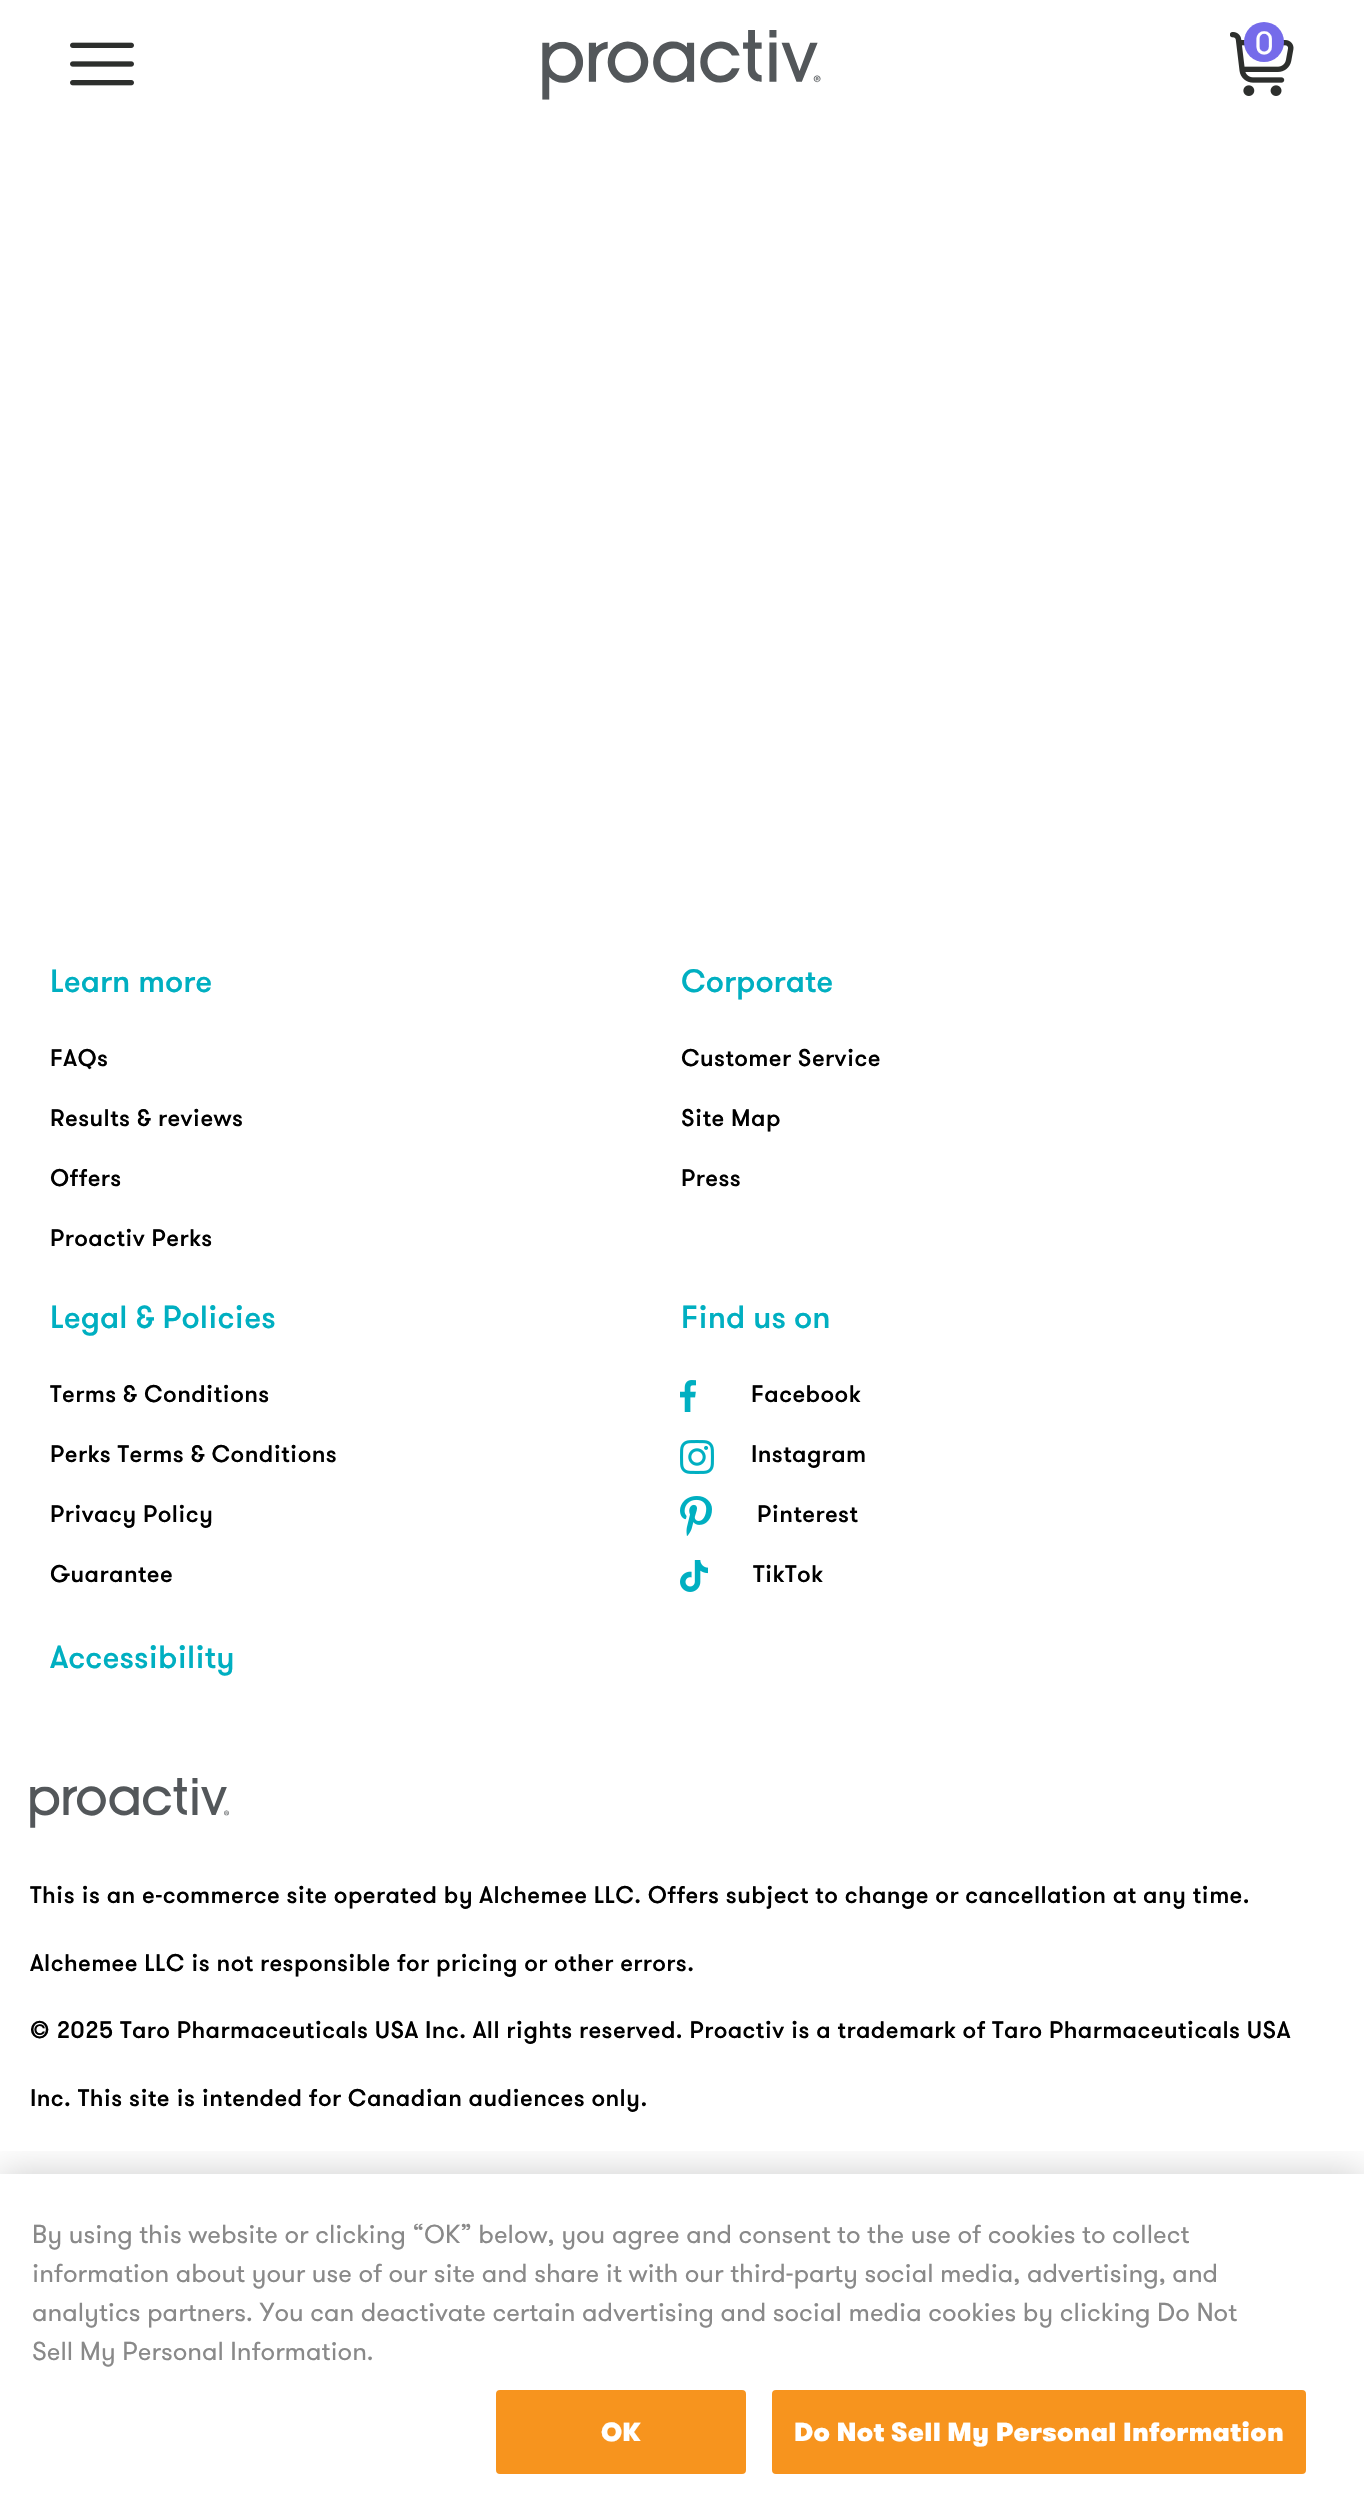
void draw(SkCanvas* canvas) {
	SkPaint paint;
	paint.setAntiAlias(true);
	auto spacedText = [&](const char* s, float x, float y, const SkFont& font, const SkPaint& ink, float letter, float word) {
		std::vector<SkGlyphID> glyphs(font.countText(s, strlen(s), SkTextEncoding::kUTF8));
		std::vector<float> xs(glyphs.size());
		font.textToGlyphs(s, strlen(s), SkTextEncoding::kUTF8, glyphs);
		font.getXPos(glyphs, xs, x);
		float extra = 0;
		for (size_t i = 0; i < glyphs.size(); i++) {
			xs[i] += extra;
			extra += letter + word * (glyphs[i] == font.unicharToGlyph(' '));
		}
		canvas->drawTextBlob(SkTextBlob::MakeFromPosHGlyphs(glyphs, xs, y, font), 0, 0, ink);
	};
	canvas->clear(0xffffffff);
	canvas->drawImageRect(SkImages::DeferredFromEncodedData(SkData::MakeFromFileName("img1.png")), SkRect::MakeXYWH(70, 42, 64, 44), SkSamplingOptions());
	canvas->drawImageRect(SkImages::DeferredFromEncodedData(SkData::MakeFromFileName("img2.png")), SkRect::MakeXYWH(542, 30, 279, 70), SkSamplingOptions());
	canvas->drawImageRect(SkImages::DeferredFromEncodedData(SkData::MakeFromFileName("img3.png")), SkRect::MakeXYWH(1230, 32, 64, 64), SkSamplingOptions());
	paint.setColor(0xff756bea);
	canvas->drawCircle(1264, 42, 20, paint);
	SkFont f1(fontMgr->matchFamilyStyle("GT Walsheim", SkFontStyle::Normal()), 32);
	f1.setSubpixel(true);
	paint.setColor(0xffffffff);
	canvas->drawString("0", 1255, 54, f1, paint);
	SkFont f2(fontMgr->matchFamilyStyle("GT Walsheim", SkFontStyle(500, SkFontStyle::kNormal_Width, SkFontStyle::kUpright_Slant)), 32);
	f2.setSubpixel(true);
	paint.setColor(0xff00afc1);
	canvas->drawString("Learn more", 50, 992, f2, paint);
	SkFont f3(fontMgr->matchFamilyStyle("GT Walsheim", SkFontStyle(500, SkFontStyle::kNormal_Width, SkFontStyle::kUpright_Slant)), 24);
	f3.setSubpixel(true);
	paint.setColor(0xff000000);
	spacedText("FAQs", 50, 1066, f3, paint, 0.42, 0);
	spacedText("Results & reviews", 50, 1126, f3, paint, 0.42, 0);
	spacedText("Offers", 50, 1186, f3, paint, 0.42, 0);
	spacedText("Proactiv Perks", 50, 1246, f3, paint, 0.42, 0);
	paint.setColor(0xff00afc1);
	canvas->drawString("Corporate", 681, 992, f2, paint);
	paint.setColor(0xff000000);
	spacedText("Customer Service", 681, 1066, f3, paint, 0.42, 0);
	spacedText("Site Map", 681, 1126, f3, paint, 0.42, 0);
	spacedText("Press", 681, 1186, f3, paint, 0.42, 0);
	paint.setColor(0xff00afc1);
	canvas->drawString("Legal & Policies", 50, 1328, f2, paint);
	paint.setColor(0xff000000);
	spacedText("Terms & Conditions", 50, 1402, f3, paint, 0.42, 0);
	spacedText("Perks Terms & Conditions", 50, 1462, f3, paint, 0.42, 0);
	spacedText("Privacy Policy", 50, 1522, f3, paint, 0.42, 0);
	spacedText("Guarantee", 50, 1582, f3, paint, 0.42, 0);
	paint.setColor(0xff00afc1);
	canvas->drawString("Find us on", 681, 1328, f2, paint);
	canvas->drawImageRect(SkImages::DeferredFromEncodedData(SkData::MakeFromFileName("img4.png")), SkRect::MakeXYWH(680, 1380, 16, 32), SkSamplingOptions());
	paint.setColor(0xff000000);
	spacedText("Facebook", 751, 1402, f3, paint, 0.42, 0);
	canvas->drawImageRect(SkImages::DeferredFromEncodedData(SkData::MakeFromFileName("img5.png")), SkRect::MakeXYWH(680, 1440, 34, 34), SkSamplingOptions());
	spacedText("Instagram", 751, 1462, f3, paint, 0.42, 0);
	canvas->drawImageRect(SkImages::DeferredFromEncodedData(SkData::MakeFromFileName("img6.png")), SkRect::MakeXYWH(680, 1496, 32, 40), SkSamplingOptions());
	spacedText("Pinterest", 757, 1522, f3, paint, 0.42, 0);
	canvas->drawImageRect(SkImages::DeferredFromEncodedData(SkData::MakeFromFileName("img7.png")), SkRect::MakeXYWH(680, 1560, 28, 32), SkSamplingOptions());
	spacedText("TikTok", 753, 1582, f3, paint, 0.42, 0);
	paint.setColor(0xff00afc1);
	canvas->drawString("Accessibility", 50, 1668, f2, paint);
	canvas->drawImageRect(SkImages::DeferredFromEncodedData(SkData::MakeFromFileName("img8.png")), SkRect::MakeXYWH(30, 1778, 199, 50), SkSamplingOptions());
	paint.setColor(0xff000000);
	spacedText("This is an e-commerce site operated by Alchemee LLC. Offers subject to change or cancellation at any time.", 30, 1903, f3, paint, 0.42, 0);
	spacedText("Alchemee LLC is not responsible for pricing or other errors.", 30, 1971, f3, paint, 0.42, 0);
	spacedText("© 2025 Taro Pharmaceuticals USA Inc. All rights reserved. Proactiv is a trademark of Taro Pharmaceuticals USA", 30, 2038, f3, paint, 0.42, 0);
	spacedText("Inc. This site is intended for Canadian audiences only.", 30, 2106, f3, paint, 0.42, 0);
	canvas->save();
	canvas->clipRect(SkRect::MakeXYWH(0, 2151, 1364, 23));
	paint.setColor(0x33000000);
	paint.setMaskFilter(SkMaskFilter::MakeBlur(kNormal_SkBlurStyle, 18));
	canvas->drawRect(SkRect::MakeXYWH(0, 2174, 1364, 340), paint);
	paint.setMaskFilter(nullptr);
	canvas->restore();
	SkFont f4(fontMgr->matchFamilyStyle("GT Walsheim", SkFontStyle::Normal()), 26);
	f4.setSubpixel(true);
	paint.setColor(0xff898989);
	canvas->drawString("By using this website or clicking “OK” below, you agree and consent to the use of cookies to collect", 32, 2243, f4, paint);
	canvas->drawString("information about your use of our site and share it with our third-party social media, advertising, and", 32, 2282, f4, paint);
	canvas->drawString("analytics partners. You can deactivate certain advertising and social media cookies by clicking Do Not", 32, 2321, f4, paint);
	canvas->drawString("Sell My Personal Information.", 32, 2360, f4, paint);
	paint.setColor(0xfff7941e);
	canvas->drawRoundRect(SkRect::MakeXYWH(497, 2391, 248, 82), 3, 3, paint);
	paint.setStroke(true);
	paint.setStrokeWidth(2);
	canvas->drawRoundRect(SkRect::MakeXYWH(497, 2391, 248, 82), 3, 3, paint);
	SkFont f5(fontMgr->matchFamilyStyle("GT Walsheim", SkFontStyle(900, SkFontStyle::kNormal_Width, SkFontStyle::kUpright_Slant)), 26);
	f5.setSubpixel(true);
	paint.setStroke(false);
	paint.setColor(0xffffffff);
	spacedText("OK", 601, 2441, f5, paint, 0.25, 0);
	paint.setColor(0xfff7941e);
	canvas->drawRoundRect(SkRect::MakeXYWH(773, 2391, 532, 82), 3, 3, paint);
	paint.setStroke(true);
	canvas->drawRoundRect(SkRect::MakeXYWH(773, 2391, 532, 82), 3, 3, paint);
	paint.setStroke(false);
	paint.setColor(0xffffffff);
	spacedText("Do Not Sell My Personal Information", 794, 2441, f5, paint, 0.25, 0);
}
